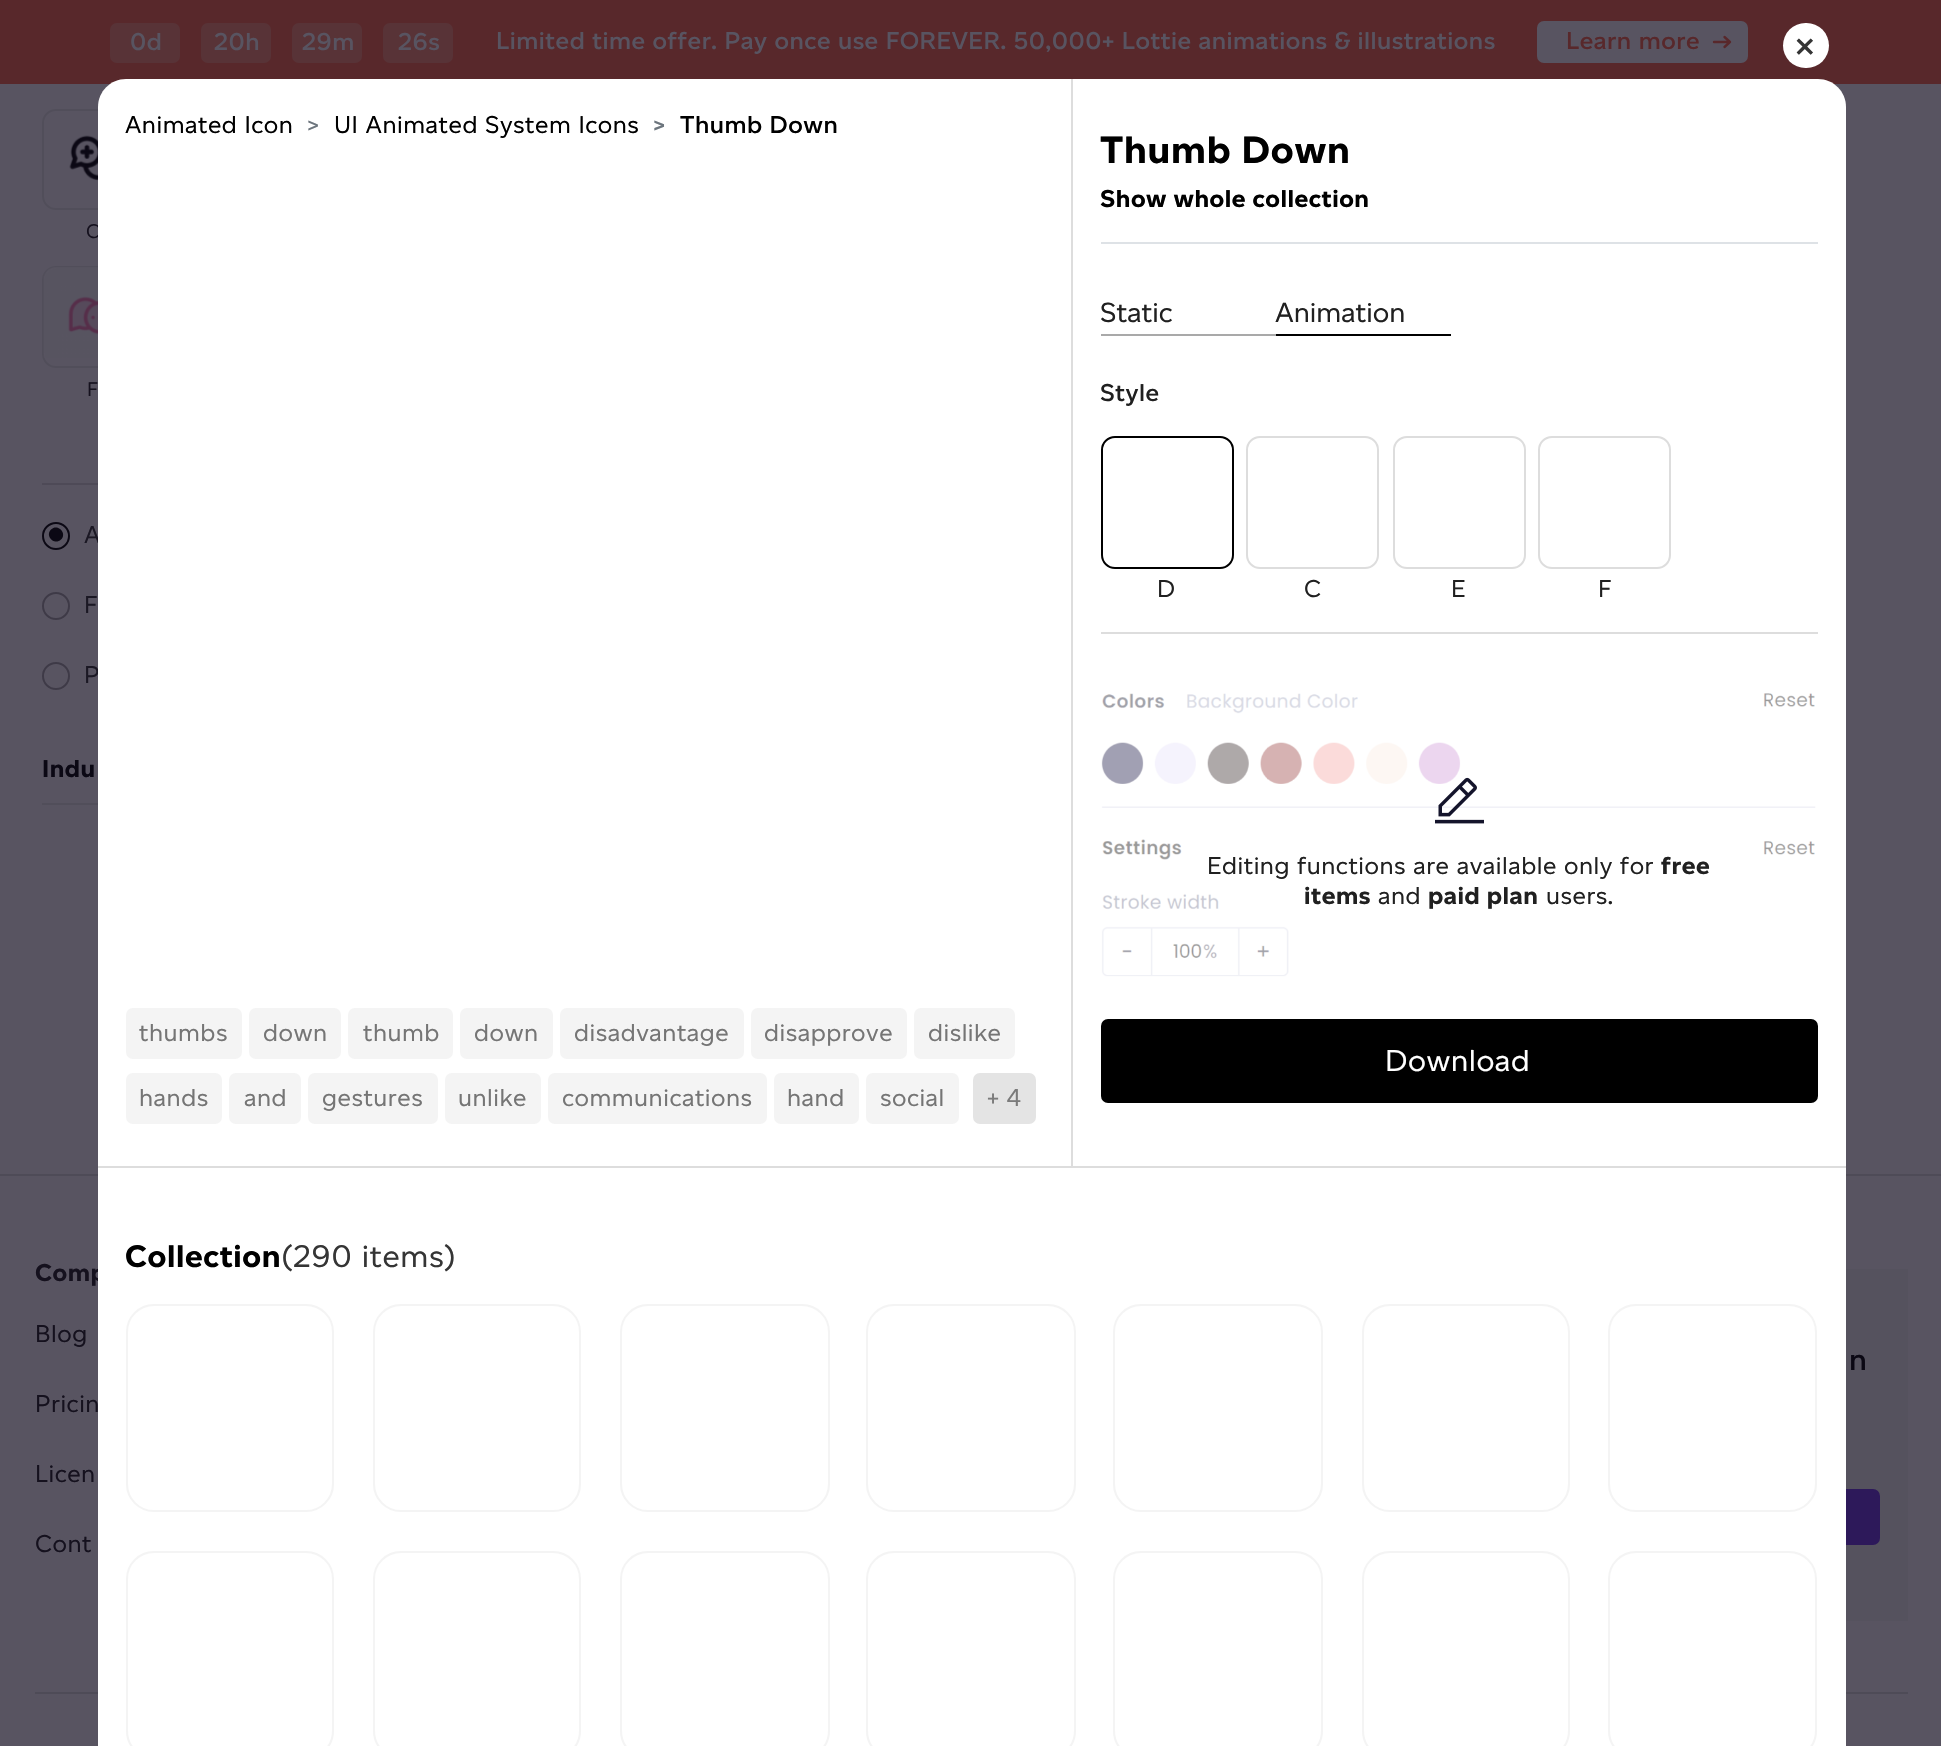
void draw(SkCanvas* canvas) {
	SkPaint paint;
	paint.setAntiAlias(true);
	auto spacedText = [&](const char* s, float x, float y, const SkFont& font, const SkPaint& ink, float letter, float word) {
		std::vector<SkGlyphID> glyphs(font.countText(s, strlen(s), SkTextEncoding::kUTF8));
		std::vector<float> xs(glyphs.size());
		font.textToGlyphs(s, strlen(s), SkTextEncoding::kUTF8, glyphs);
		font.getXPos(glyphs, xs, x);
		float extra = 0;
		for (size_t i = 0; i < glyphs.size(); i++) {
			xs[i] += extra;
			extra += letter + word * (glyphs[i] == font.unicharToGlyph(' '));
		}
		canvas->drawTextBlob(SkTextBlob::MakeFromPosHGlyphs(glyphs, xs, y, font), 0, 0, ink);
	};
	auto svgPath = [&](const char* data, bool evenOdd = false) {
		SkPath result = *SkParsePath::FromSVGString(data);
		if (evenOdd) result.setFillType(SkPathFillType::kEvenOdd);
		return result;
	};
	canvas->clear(0xff585461);
	paint.setColor(0xff58282b);
	canvas->drawRect(SkRect::MakeXYWH(0, 0, 1941, 84), paint);
	paint.setColor(0xff583337);
	canvas->drawRoundRect(SkRect::MakeXYWH(110, 23, 70, 40), 7, 7, paint);
	SkFont f1(fontMgr->matchFamilyStyle("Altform", SkFontStyle(600, SkFontStyle::kNormal_Width, SkFontStyle::kUpright_Slant)), 24.5);
	f1.setSubpixel(true);
	paint.setColor(0xff585461);
	spacedText("0d", 130, 50, f1, paint, 0.5, 0);
	paint.setColor(0xff583337);
	canvas->drawRoundRect(SkRect::MakeXYWH(201, 23, 70, 40), 7, 7, paint);
	paint.setColor(0xff585461);
	spacedText("20h", 214, 50, f1, paint, 0.5, 0);
	paint.setColor(0xff583337);
	canvas->drawRoundRect(SkRect::MakeXYWH(292, 23, 70, 40), 7, 7, paint);
	paint.setColor(0xff585461);
	spacedText("29m", 302, 50, f1, paint, 0.5, 0);
	paint.setColor(0xff583337);
	canvas->drawRoundRect(SkRect::MakeXYWH(383, 23, 70, 40), 7, 7, paint);
	paint.setColor(0xff585461);
	spacedText("26s", 398, 50, f1, paint, 0.5, 0);
	spacedText("Limited time offer. Pay once use FOREVER. 50,000+ Lottie animations & illustrations", 496, 49, f1, paint, 0.5, 0);
	canvas->drawRoundRect(SkRect::MakeXYWH(1538, 22, 209, 40), 6, 6, paint);
	paint.setStroke(true);
	paint.setStrokeWidth(2);
	canvas->drawRoundRect(SkRect::MakeXYWH(1538, 22, 209, 40), 6, 6, paint);
	paint.setStroke(false);
	paint.setColor(0xff58282b);
	spacedText("Learn more", 1566, 49, f1, paint, 0.5, 0);
	paint.setStroke(true);
	paint.setStrokeWidth(2.4);
	paint.setStrokeCap(SkPaint::kRound_Cap);
	paint.setStrokeJoin(SkPaint::kRound_Join);
	canvas->drawPath(svgPath("M1714 42H1730M1730 42L1724.5 47M1730 42L1724.5 37"), paint);
	paint.setStrokeWidth(2);
	paint.setStrokeCap(SkPaint::kButt_Cap);
	paint.setStrokeJoin(SkPaint::kMiter_Join);
	paint.setColor(0xff514e5a);
	canvas->drawRoundRect(SkRect::MakeXYWH(43, 110, 100, 99), 13, 13, paint);
	canvas->drawImageRect(SkImages::DeferredFromEncodedData(SkData::MakeFromFileName("img1.png")), SkRect::MakeXYWH(69, 135, 29, 46), SkSamplingOptions());
	SkFont f2(fontMgr->matchFamilyStyle("Altform", SkFontStyle::Normal()), 20);
	f2.setSubpixel(true);
	paint.setStroke(false);
	paint.setColor(0xff15111e);
	canvas->drawString("C", 86, 238, f2, paint);
	paint.setStroke(true);
	paint.setColor(0xff514e5a);
	canvas->drawRoundRect(SkRect::MakeXYWH(43, 267, 100, 100), 13, 13, paint);
	canvas->drawImageRect(SkImages::DeferredFromEncodedData(SkData::MakeFromFileName("img2.png")), SkRect::MakeXYWH(43, 267, 55, 91), SkSamplingOptions());
	paint.setStroke(false);
	paint.setColor(0xff15111e);
	canvas->drawString("F", 87, 396, f2, paint);
	paint.setColor(0xff4e4a57);
	canvas->drawRect(SkRect::MakeXYWH(42, 483, 56, 2), paint);
	paint.setStroke(true);
	paint.setColor(0xff0b0814);
	canvas->drawCircle(56, 536, 13, paint);
	SkFont f3(fontMgr->matchFamilyStyle("Altform", SkFontStyle::Normal()), 24.5);
	f3.setSubpixel(true);
	paint.setStroke(false);
	paint.setColor(0xff1b1824);
	spacedText("A", 84, 543, f3, paint, 0.5, 0);
	paint.setColor(0xff0b0814);
	canvas->drawPath(svgPath("M51 529.5C57.5 523 67.5 533 61 539.5C54.5 546 44.5 536 51 529.5Z"), paint);
	paint.setStroke(true);
	paint.setColor(0xff3e3a47);
	canvas->drawCircle(56, 606, 13, paint);
	paint.setStroke(false);
	paint.setColor(0xff1b1824);
	spacedText("F", 84, 613, f3, paint, 0.5, 0);
	paint.setStroke(true);
	paint.setColor(0xff3e3a47);
	canvas->drawCircle(56, 676, 13, paint);
	paint.setStroke(false);
	paint.setColor(0xff1b1824);
	spacedText("P", 84, 683, f3, paint, 0.5, 0);
	paint.setColor(0xff514e5a);
	canvas->drawRect(SkRect::MakeXYWH(42, 803, 56, 2), paint);
	SkFont f4(fontMgr->matchFamilyStyle("Altform", SkFontStyle::Bold()), 24.5);
	f4.setSubpixel(true);
	paint.setColor(0xff0b0814);
	spacedText("Indu", 42, 777, f4, paint, 0.5, 0);
	paint.setColor(0xff4e4b57);
	canvas->drawRect(SkRect::MakeXYWH(0, 1174, 1941, 2), paint);
	canvas->drawRect(SkRect::MakeXYWH(35, 1692, 1873, 2), paint);
	paint.setColor(0xff15111e);
	spacedText("Comp", 35, 1281, f4, paint, 0.5, 0);
	paint.setColor(0xff55525e);
	canvas->drawRect(SkRect::MakeXYWH(1846, 1269, 62, 352), paint);
	paint.setColor(0xff2d195a);
	canvas->drawRoundRect(SkRect::MakeXYWH(1680, 1489, 200, 56), 7, 7, paint);
	paint.setColor(0xffffffff);
	canvas->drawPath(svgPath("M126 79H1818C1833.5 79 1846 91.5 1846 107V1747H98V107C98 91.5 110.5 79 126 79Z"), paint);
	canvas->drawRoundRect(SkRect::MakeXYWH(1783, 23, 46, 45), 22.5, 22.5, paint);
	SkFont f5(fontMgr->matchFamilyStyle("Altform", SkFontStyle::Normal()), 44);
	f5.setSubpixel(true);
	paint.setColor(0xff353535);
	canvas->drawString("×", 1794, 60, f5, paint);
	paint.setColor(0xffdddddd);
	canvas->drawRect(SkRect::MakeXYWH(98, 1166, 1748, 2), paint);
	canvas->drawRect(SkRect::MakeXYWH(1071, 79, 2, 1087), paint);
	paint.setColor(0xff000000);
	spacedText("Animated Icon", 125, 133, f3, paint, 0.5, 0);
	paint.setColor(0xff6c757d);
	spacedText(">", 307, 133, f3, paint, 0.5, 0);
	paint.setColor(0xff000000);
	spacedText("UI Animated System Icons", 334, 133, f3, paint, 0.5, 0);
	paint.setColor(0xff6c757d);
	spacedText(">", 653, 133, f1, paint, 0.5, 0);
	paint.setColor(0xff000000);
	spacedText("Thumb Down", 680, 133, f1, paint, 0.5, 0);
	paint.setColor(0xfff4f4f4);
	canvas->drawRoundRect(SkRect::MakeXYWH(126, 1008, 116, 51), 7, 7, paint);
	paint.setColor(0xff757575);
	spacedText("thumbs", 139, 1041, f3, paint, 0.5, 0);
	paint.setColor(0xfff4f4f4);
	canvas->drawRoundRect(SkRect::MakeXYWH(249, 1008, 92, 51), 7, 7, paint);
	paint.setColor(0xff757575);
	spacedText("down", 263, 1041, f3, paint, 0.5, 0);
	paint.setColor(0xfff4f4f4);
	canvas->drawRoundRect(SkRect::MakeXYWH(348, 1008, 105, 51), 7, 7, paint);
	paint.setColor(0xff757575);
	spacedText("thumb", 363, 1041, f3, paint, 0.5, 0);
	paint.setColor(0xfff4f4f4);
	canvas->drawRoundRect(SkRect::MakeXYWH(460, 1008, 93, 51), 7, 7, paint);
	paint.setColor(0xff757575);
	spacedText("down", 474, 1041, f3, paint, 0.5, 0);
	paint.setColor(0xfff4f4f4);
	canvas->drawRoundRect(SkRect::MakeXYWH(560, 1008, 184, 51), 7, 7, paint);
	paint.setColor(0xff757575);
	spacedText("disadvantage", 574, 1041, f3, paint, 0.5, 0);
	paint.setColor(0xfff4f4f4);
	canvas->drawRoundRect(SkRect::MakeXYWH(751, 1008, 156, 51), 7, 7, paint);
	paint.setColor(0xff757575);
	spacedText("disapprove", 764, 1041, f3, paint, 0.5, 0);
	paint.setColor(0xfff4f4f4);
	canvas->drawRoundRect(SkRect::MakeXYWH(914, 1008, 101, 51), 7, 7, paint);
	paint.setColor(0xff757575);
	spacedText("dislike", 928, 1041, f3, paint, 0.5, 0);
	paint.setColor(0xfff4f4f4);
	canvas->drawRoundRect(SkRect::MakeXYWH(126, 1073, 96, 51), 7, 7, paint);
	paint.setColor(0xff757575);
	spacedText("hands", 139, 1106, f3, paint, 0.5, 0);
	paint.setColor(0xfff4f4f4);
	canvas->drawRoundRect(SkRect::MakeXYWH(229, 1073, 72, 51), 7, 7, paint);
	paint.setColor(0xff757575);
	spacedText("and", 244, 1106, f3, paint, 0.5, 0);
	paint.setColor(0xfff4f4f4);
	canvas->drawRoundRect(SkRect::MakeXYWH(308, 1073, 130, 51), 7, 7, paint);
	paint.setColor(0xff757575);
	spacedText("gestures", 322, 1106, f3, paint, 0.5, 0);
	paint.setColor(0xfff4f4f4);
	canvas->drawRoundRect(SkRect::MakeXYWH(445, 1073, 96, 51), 7, 7, paint);
	paint.setColor(0xff757575);
	spacedText("unlike", 458, 1106, f3, paint, 0.5, 0);
	paint.setColor(0xfff4f4f4);
	canvas->drawRoundRect(SkRect::MakeXYWH(548, 1073, 219, 51), 7, 7, paint);
	paint.setColor(0xff757575);
	spacedText("communications", 562, 1106, f3, paint, 0.5, 0);
	paint.setColor(0xfff4f4f4);
	canvas->drawRoundRect(SkRect::MakeXYWH(774, 1073, 85, 51), 7, 7, paint);
	paint.setColor(0xff757575);
	spacedText("hand", 787, 1106, f3, paint, 0.5, 0);
	paint.setColor(0xfff4f4f4);
	canvas->drawRoundRect(SkRect::MakeXYWH(866, 1073, 93, 51), 7, 7, paint);
	paint.setColor(0xff757575);
	spacedText("social", 880, 1106, f3, paint, 0.5, 0);
	paint.setColor(0xffe4e4e4);
	canvas->drawRoundRect(SkRect::MakeXYWH(973, 1073, 63, 51), 7, 7, paint);
	paint.setColor(0xff7b7b7b);
	spacedText("+ 4", 987, 1106, f3, paint, 0.5, 0);
	paint.setColor(0xffdee2e6);
	canvas->drawRect(SkRect::MakeXYWH(1101, 242, 717, 2), paint);
	SkFont f6(fontMgr->matchFamilyStyle("Altform", SkFontStyle::Bold()), 38.25);
	f6.setSubpixel(true);
	paint.setColor(0xff000000);
	spacedText("Thumb Down", 1100, 163, f6, paint, 0.75, 0);
	spacedText("Show whole collection", 1100, 207, f4, paint, 0.5, 0);
	paint.setColor(0xffa9a9a9);
	canvas->drawRect(SkRect::MakeXYWH(1101, 334, 175, 2), paint);
	SkFont f7(fontMgr->matchFamilyStyle("Altform", SkFontStyle::Normal()), 28);
	f7.setSubpixel(true);
	paint.setColor(0xff202020);
	canvas->drawString("Static", 1100, 322, f7, paint);
	paint.setColor(0xff000000);
	canvas->drawRect(SkRect::MakeXYWH(1276, 334, 175, 2), paint);
	paint.setColor(0xff202020);
	canvas->drawString("Animation", 1275, 322, f7, paint);
	paint.setColor(0xffdddddd);
	canvas->drawRect(SkRect::MakeXYWH(1101, 632, 717, 2), paint);
	paint.setColor(0xff202020);
	spacedText("Style", 1100, 401, f1, paint, 0.5, 0);
	paint.setStroke(true);
	paint.setColor(0xff000000);
	canvas->drawRoundRect(SkRect::MakeXYWH(1102, 437, 131, 131), 13, 13, paint);
	paint.setStroke(false);
	paint.setColor(0xff202020);
	canvas->drawString("D", 1157, 597, f3, paint);
	paint.setStroke(true);
	paint.setColor(0xffdddddd);
	canvas->drawRoundRect(SkRect::MakeXYWH(1247, 437, 131, 131), 13, 13, paint);
	paint.setStroke(false);
	paint.setColor(0xff202020);
	canvas->drawString("C", 1304, 597, f3, paint);
	paint.setStroke(true);
	paint.setColor(0xffdddddd);
	canvas->drawRoundRect(SkRect::MakeXYWH(1394, 437, 131, 131), 13, 13, paint);
	paint.setStroke(false);
	paint.setColor(0xff202020);
	canvas->drawString("E", 1451, 597, f3, paint);
	paint.setStroke(true);
	paint.setColor(0xffdddddd);
	canvas->drawRoundRect(SkRect::MakeXYWH(1539, 437, 131, 131), 13, 13, paint);
	paint.setStroke(false);
	paint.setColor(0xff202020);
	canvas->drawString("F", 1598, 597, f3, paint);
	canvas->drawImageRect(SkImages::DeferredFromEncodedData(SkData::MakeFromFileName("img3.png")), SkRect::MakeXYWH(1101, 693, 715, 284), SkSamplingOptions());
	canvas->drawImageRect(SkImages::DeferredFromEncodedData(SkData::MakeFromFileName("img4.png")), SkRect::MakeXYWH(1435, 777, 49, 47), SkSamplingOptions());
	spacedText("Editing functions are available only for", 1207, 874, f3, paint, 0.5, 0);
	spacedText("free", 1661, 874, f4, paint, 0.5, 0);
	spacedText("items", 1304, 904, f4, paint, 0.5, 0);
	spacedText("and", 1378, 904, f3, paint, 0.5, 0);
	spacedText("paid plan", 1428, 904, f4, paint, 0.5, 0);
	spacedText("users.", 1546, 904, f3, paint, 0.5, 0);
	paint.setColor(0xff000000);
	canvas->drawRoundRect(SkRect::MakeXYWH(1101, 1019, 717, 84), 7, 7, paint);
	SkFont f8(fontMgr->matchFamilyStyle("Altform", SkFontStyle::Normal()), 30.5);
	f8.setSubpixel(true);
	paint.setColor(0xffffffff);
	spacedText("Download", 1385, 1071, f8, paint, 0.5, 0);
	SkFont f9(fontMgr->matchFamilyStyle("Altform", SkFontStyle::Bold()), 31.5);
	f9.setSubpixel(true);
	paint.setColor(0xff000000);
	spacedText("Collection", 125, 1267, f9, paint, 0.6, 0);
	SkFont f10(fontMgr->matchFamilyStyle("Altform", SkFontStyle::Normal()), 31.5);
	f10.setSubpixel(true);
	paint.setColor(0xff353535);
	spacedText("(290 items)", 281, 1267, f10, paint, 0.6, 0);
	paint.setStroke(true);
	paint.setColor(0xfff4f4f4);
	canvas->drawRoundRect(SkRect::MakeXYWH(127, 1305, 206, 206), 27, 27, paint);
	canvas->drawRoundRect(SkRect::MakeXYWH(374, 1305, 206, 206), 27, 27, paint);
	canvas->drawRoundRect(SkRect::MakeXYWH(621, 1305, 208, 206), 27, 27, paint);
	canvas->drawRoundRect(SkRect::MakeXYWH(867, 1305, 208, 206), 27, 27, paint);
	canvas->drawRoundRect(SkRect::MakeXYWH(1114, 1305, 208, 206), 27, 27, paint);
	canvas->drawRoundRect(SkRect::MakeXYWH(1363, 1305, 206, 206), 27, 27, paint);
	canvas->drawRoundRect(SkRect::MakeXYWH(1609, 1305, 207, 206), 27, 27, paint);
	canvas->drawRoundRect(SkRect::MakeXYWH(127, 1552, 206, 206), 27, 27, paint);
	canvas->drawRoundRect(SkRect::MakeXYWH(374, 1552, 206, 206), 27, 27, paint);
	canvas->drawRoundRect(SkRect::MakeXYWH(621, 1552, 208, 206), 27, 27, paint);
	canvas->drawRoundRect(SkRect::MakeXYWH(867, 1552, 208, 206), 27, 27, paint);
	canvas->drawRoundRect(SkRect::MakeXYWH(1114, 1552, 208, 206), 27, 27, paint);
	canvas->drawRoundRect(SkRect::MakeXYWH(1363, 1552, 206, 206), 27, 27, paint);
	canvas->drawRoundRect(SkRect::MakeXYWH(1609, 1552, 207, 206), 27, 27, paint);
	paint.setStroke(false);
	paint.setColor(0xff15111e);
	spacedText("Blog", 35, 1342, f3, paint, 0.5, 0);
	spacedText("Pricin", 35, 1412, f3, paint, 0.5, 0);
	spacedText("Licen", 35, 1482, f3, paint, 0.5, 0);
	spacedText("Cont", 35, 1552, f3, paint, 0.5, 0);
	SkFont f11(fontMgr->matchFamilyStyle("Altform", SkFontStyle(600, SkFontStyle::kNormal_Width, SkFontStyle::kUpright_Slant)), 30.5);
	f11.setSubpixel(true);
	paint.setColor(0xff0b0814);
	spacedText("n", 1849, 1370, f11, paint, 0.5, 0);
}
